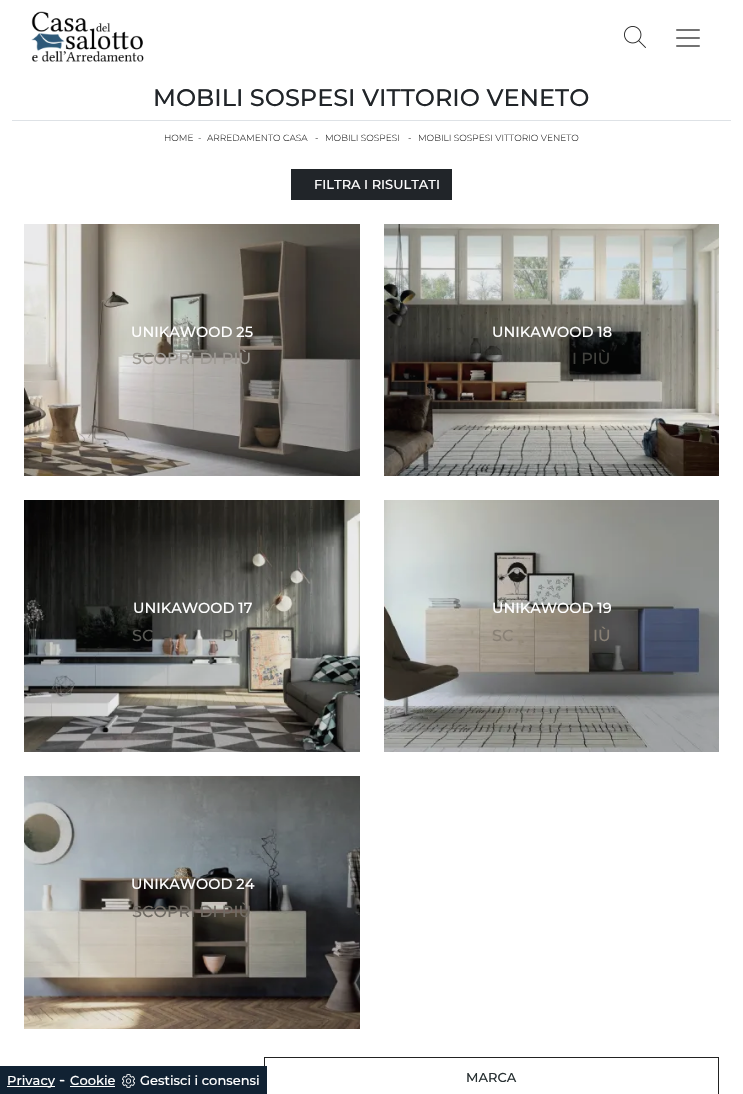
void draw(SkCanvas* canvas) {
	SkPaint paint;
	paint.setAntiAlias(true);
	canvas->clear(0xffffffff);
	canvas->drawImageRect(SkImages::DeferredFromEncodedData(SkData::MakeFromFileName("img1.png")), SkRect::MakeXYWH(31, 11, 113, 51), SkSamplingOptions());
	canvas->drawImageRect(SkImages::DeferredFromEncodedData(SkData::MakeFromFileName("img2.png")), SkRect::MakeXYWH(624, 26, 22, 22), SkSamplingOptions());
	canvas->drawImageRect(SkImages::DeferredFromEncodedData(SkData::MakeFromFileName("img3.png")), SkRect::MakeXYWH(676, 29, 24, 18), SkSamplingOptions());
	paint.setColor(0xffdee2e6);
	canvas->drawRect(SkRect::MakeXYWH(12, 120, 719, 1), paint);
	SkFont f1(fontMgr->matchFamilyStyle("Montserrat", SkFontStyle(500, SkFontStyle::kNormal_Width, SkFontStyle::kUpright_Slant)), 24);
	f1.setSubpixel(true);
	paint.setColor(0xff212529);
	canvas->drawString("MOBILI SOSPESI VITTORIO VENETO", 153, 106, f1, paint);
	SkFont f2(fontMgr->matchFamilyStyle("Montserrat", SkFontStyle(300, SkFontStyle::kNormal_Width, SkFontStyle::kUpright_Slant)), 9);
	f2.setSubpixel(true);
	paint.setColor(0xff222222);
	canvas->drawString("HOME", 164, 141, f2, paint);
	paint.setColor(0xff293133);
	canvas->drawString("-", 198, 141, f2, paint);
	paint.setColor(0xff222222);
	canvas->drawString("ARREDAMENTO CASA", 207, 141, f2, paint);
	paint.setColor(0xff000000);
	canvas->drawString("-", 315, 141, f2, paint);
	paint.setColor(0xff222222);
	canvas->drawString("MOBILI SOSPESI", 325, 141, f2, paint);
	paint.setColor(0xff000000);
	canvas->drawString("-", 408, 141, f2, paint);
	paint.setColor(0xff222222);
	canvas->drawString("MOBILI SOSPESI VITTORIO VENETO", 418, 141, f2, paint);
	paint.setColor(0xff212529);
	canvas->drawRect(SkRect::MakeXYWH(291, 169, 161, 31), paint);
	SkFont f3(fontMgr->matchFamilyStyle("Montserrat", SkFontStyle(500, SkFontStyle::kNormal_Width, SkFontStyle::kUpright_Slant)), 13);
	f3.setSubpixel(true);
	paint.setColor(0xffffffff);
	canvas->drawString("FILTRA I RISULTATI", 314, 189, f3, paint);
	canvas->drawImageRect(SkImages::DeferredFromEncodedData(SkData::MakeFromFileName("img4.png")), SkRect::MakeXYWH(24, 224, 336, 252), SkSamplingOptions());
	SkFont f4(fontMgr->matchFamilyStyle("Montserrat", SkFontStyle(500, SkFontStyle::kNormal_Width, SkFontStyle::kUpright_Slant)), 14.5);
	f4.setSubpixel(true);
	canvas->drawString("UNIKAWOOD 25", 131, 337, f4, paint);
	SkFont f5(fontMgr->matchFamilyStyle("Montserrat", SkFontStyle(500, SkFontStyle::kNormal_Width, SkFontStyle::kUpright_Slant)), 16);
	f5.setSubpixel(true);
	paint.setColor(0xff9d9993);
	canvas->drawString("SCOPRI DI PIÙ", 132, 364, f5, paint);
	canvas->drawImageRect(SkImages::DeferredFromEncodedData(SkData::MakeFromFileName("img5.png")), SkRect::MakeXYWH(384, 224, 335, 252), SkSamplingOptions());
	paint.setColor(0xffffffff);
	canvas->drawString("UNIKAWOOD 18", 492, 337, f4, paint);
	paint.setColor(0xff42423e);
	canvas->drawString("I PIÙ", 572, 364, f5, paint);
	canvas->drawImageRect(SkImages::DeferredFromEncodedData(SkData::MakeFromFileName("img6.png")), SkRect::MakeXYWH(24, 500, 336, 252), SkSamplingOptions());
	paint.setColor(0xffffffff);
	canvas->drawString("UNIKAWOOD 17", 133, 613, f4, paint);
	paint.setColor(0xff575753);
	canvas->drawString("SC", 132, 641, f5, paint);
	canvas->drawString("PI", 222, 641, f5, paint);
	canvas->drawImageRect(SkImages::DeferredFromEncodedData(SkData::MakeFromFileName("img7.png")), SkRect::MakeXYWH(384, 500, 335, 252), SkSamplingOptions());
	paint.setColor(0xffffffff);
	canvas->drawString("UNIKAWOOD 19", 492, 613, f4, paint);
	paint.setColor(0xff888075);
	canvas->drawString("SC", 492, 641, f5, paint);
	canvas->drawString("IÙ", 593, 641, f5, paint);
	canvas->drawImageRect(SkImages::DeferredFromEncodedData(SkData::MakeFromFileName("img8.png")), SkRect::MakeXYWH(24, 776, 336, 253), SkSamplingOptions());
	paint.setColor(0xffffffff);
	canvas->drawString("UNIKAWOOD 24", 131, 889, f4, paint);
	paint.setColor(0xff706b64);
	canvas->drawString("SCOPRI DI PIÙ", 132, 917, f5, paint);
	paint.setStroke(true);
	paint.setStrokeWidth(1);
	paint.setColor(0xff222222);
	canvas->drawRect(SkRect::MakeXYWH(264.5, 1057.5, 454, 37), paint);
	paint.setStroke(false);
	paint.setColor(0xff293133);
	canvas->drawString("MARCA", 466, 1082, f3, paint);
	paint.setColor(0xff112233);
	canvas->drawRect(SkRect::MakeXYWH(0, 1066, 267, 28), paint);
	paint.setColor(0xffffffff);
	canvas->drawRect(SkRect::MakeXYWH(7, 1086, 48, 1), paint);
	canvas->drawString("Privacy", 7, 1085, f3, paint);
	canvas->drawString("-", 59, 1085, f5, paint);
	canvas->drawString("Cookie", 70, 1085, f3, paint);
	canvas->drawRect(SkRect::MakeXYWH(70, 1086, 45, 1), paint);
	canvas->drawImageRect(SkImages::DeferredFromEncodedData(SkData::MakeFromFileName("img9.png")), SkRect::MakeXYWH(122, 1074, 13, 14), SkSamplingOptions());
	canvas->drawString("Gestisci i consensi", 140, 1085, f3, paint);
}
